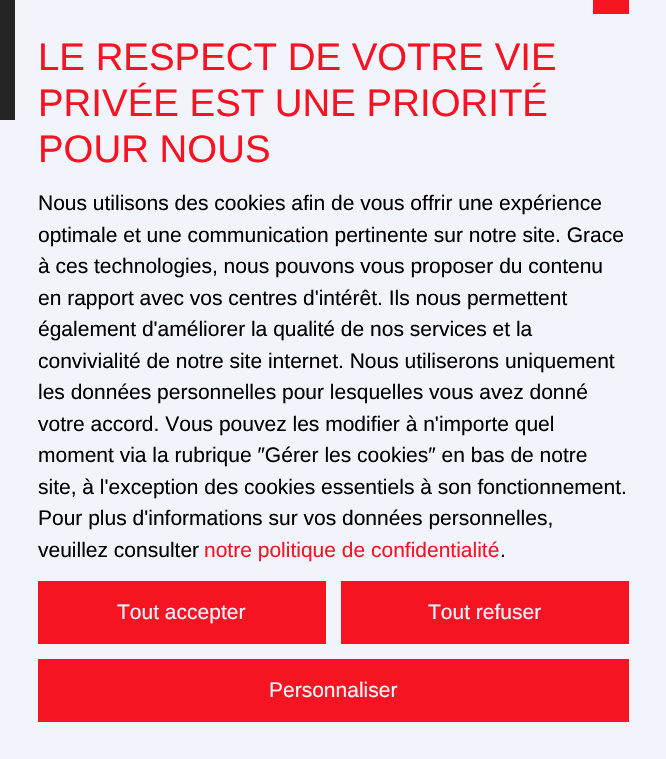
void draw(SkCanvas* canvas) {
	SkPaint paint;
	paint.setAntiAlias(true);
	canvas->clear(0xfff2f4fc);
	paint.setColor(0xff252525);
	canvas->drawRect(SkRect::MakeXYWH(0, 0, 15, 120), paint);
	paint.setColor(0xfff61422);
	canvas->drawRect(SkRect::MakeXYWH(593, 0, 36, 14), paint);
	SkFont f1(fontMgr->matchFamilyStyle("Liberation Sans", SkFontStyle::Normal()), 38.4);
	f1.setSubpixel(true);
	canvas->drawString("LE RESPECT DE VOTRE VIE", 38, 70, f1, paint);
	canvas->drawString("PRIVÉE EST UNE PRIORITÉ", 38, 116, f1, paint);
	canvas->drawString("POUR NOUS", 38, 162, f1, paint);
	SkFont f2(fontMgr->matchFamilyStyle("Liberation Sans", SkFontStyle::Normal()), 21);
	f2.setSubpixel(true);
	paint.setColor(0xff000000);
	canvas->drawString("Nous utilisons des cookies afin de vous offrir une expérience", 38, 210, f2, paint);
	canvas->drawString("optimale et une communication pertinente sur notre site. Grace", 38, 242, f2, paint);
	canvas->drawString("à ces technologies, nous pouvons vous proposer du contenu", 38, 273, f2, paint);
	canvas->drawString("en rapport avec vos centres d'intérêt. Ils nous permettent", 38, 305, f2, paint);
	canvas->drawString("également d'améliorer la qualité de nos services et la", 38, 336, f2, paint);
	canvas->drawString("convivialité de notre site internet. Nous utiliserons uniquement", 38, 368, f2, paint);
	canvas->drawString("les données personnelles pour lesquelles vous avez donné", 38, 399, f2, paint);
	canvas->drawString("votre accord. Vous pouvez les modifier à n'importe quel", 38, 431, f2, paint);
	canvas->drawString("moment via la rubrique ″Gérer les cookies″ en bas de notre", 38, 462, f2, paint);
	canvas->drawString("site, à l'exception des cookies essentiels à son fonctionnement.", 38, 494, f2, paint);
	canvas->drawString("Pour plus d'informations sur vos données personnelles,", 38, 525, f2, paint);
	canvas->drawString("veuillez consulter", 38, 557, f2, paint);
	paint.setColor(0xfff61422);
	canvas->drawString("notre politique de confidentialité", 204, 557, f2, paint);
	paint.setColor(0xff000000);
	canvas->drawString(".", 500, 557, f2, paint);
	paint.setColor(0xfff61422);
	canvas->drawRect(SkRect::MakeXYWH(38, 581, 288, 63), paint);
	paint.setColor(0xfff2f4fc);
	canvas->drawString("Tout accepter", 117, 619, f2, paint);
	paint.setColor(0xfff61422);
	canvas->drawRect(SkRect::MakeXYWH(341, 581, 288, 63), paint);
	paint.setColor(0xfff2f4fc);
	canvas->drawString("Tout refuser", 428, 619, f2, paint);
	paint.setColor(0xfff61422);
	canvas->drawRect(SkRect::MakeXYWH(38, 659, 591, 63), paint);
	paint.setColor(0xfff2f4fc);
	canvas->drawString("Personnaliser", 269, 697, f2, paint);
}
